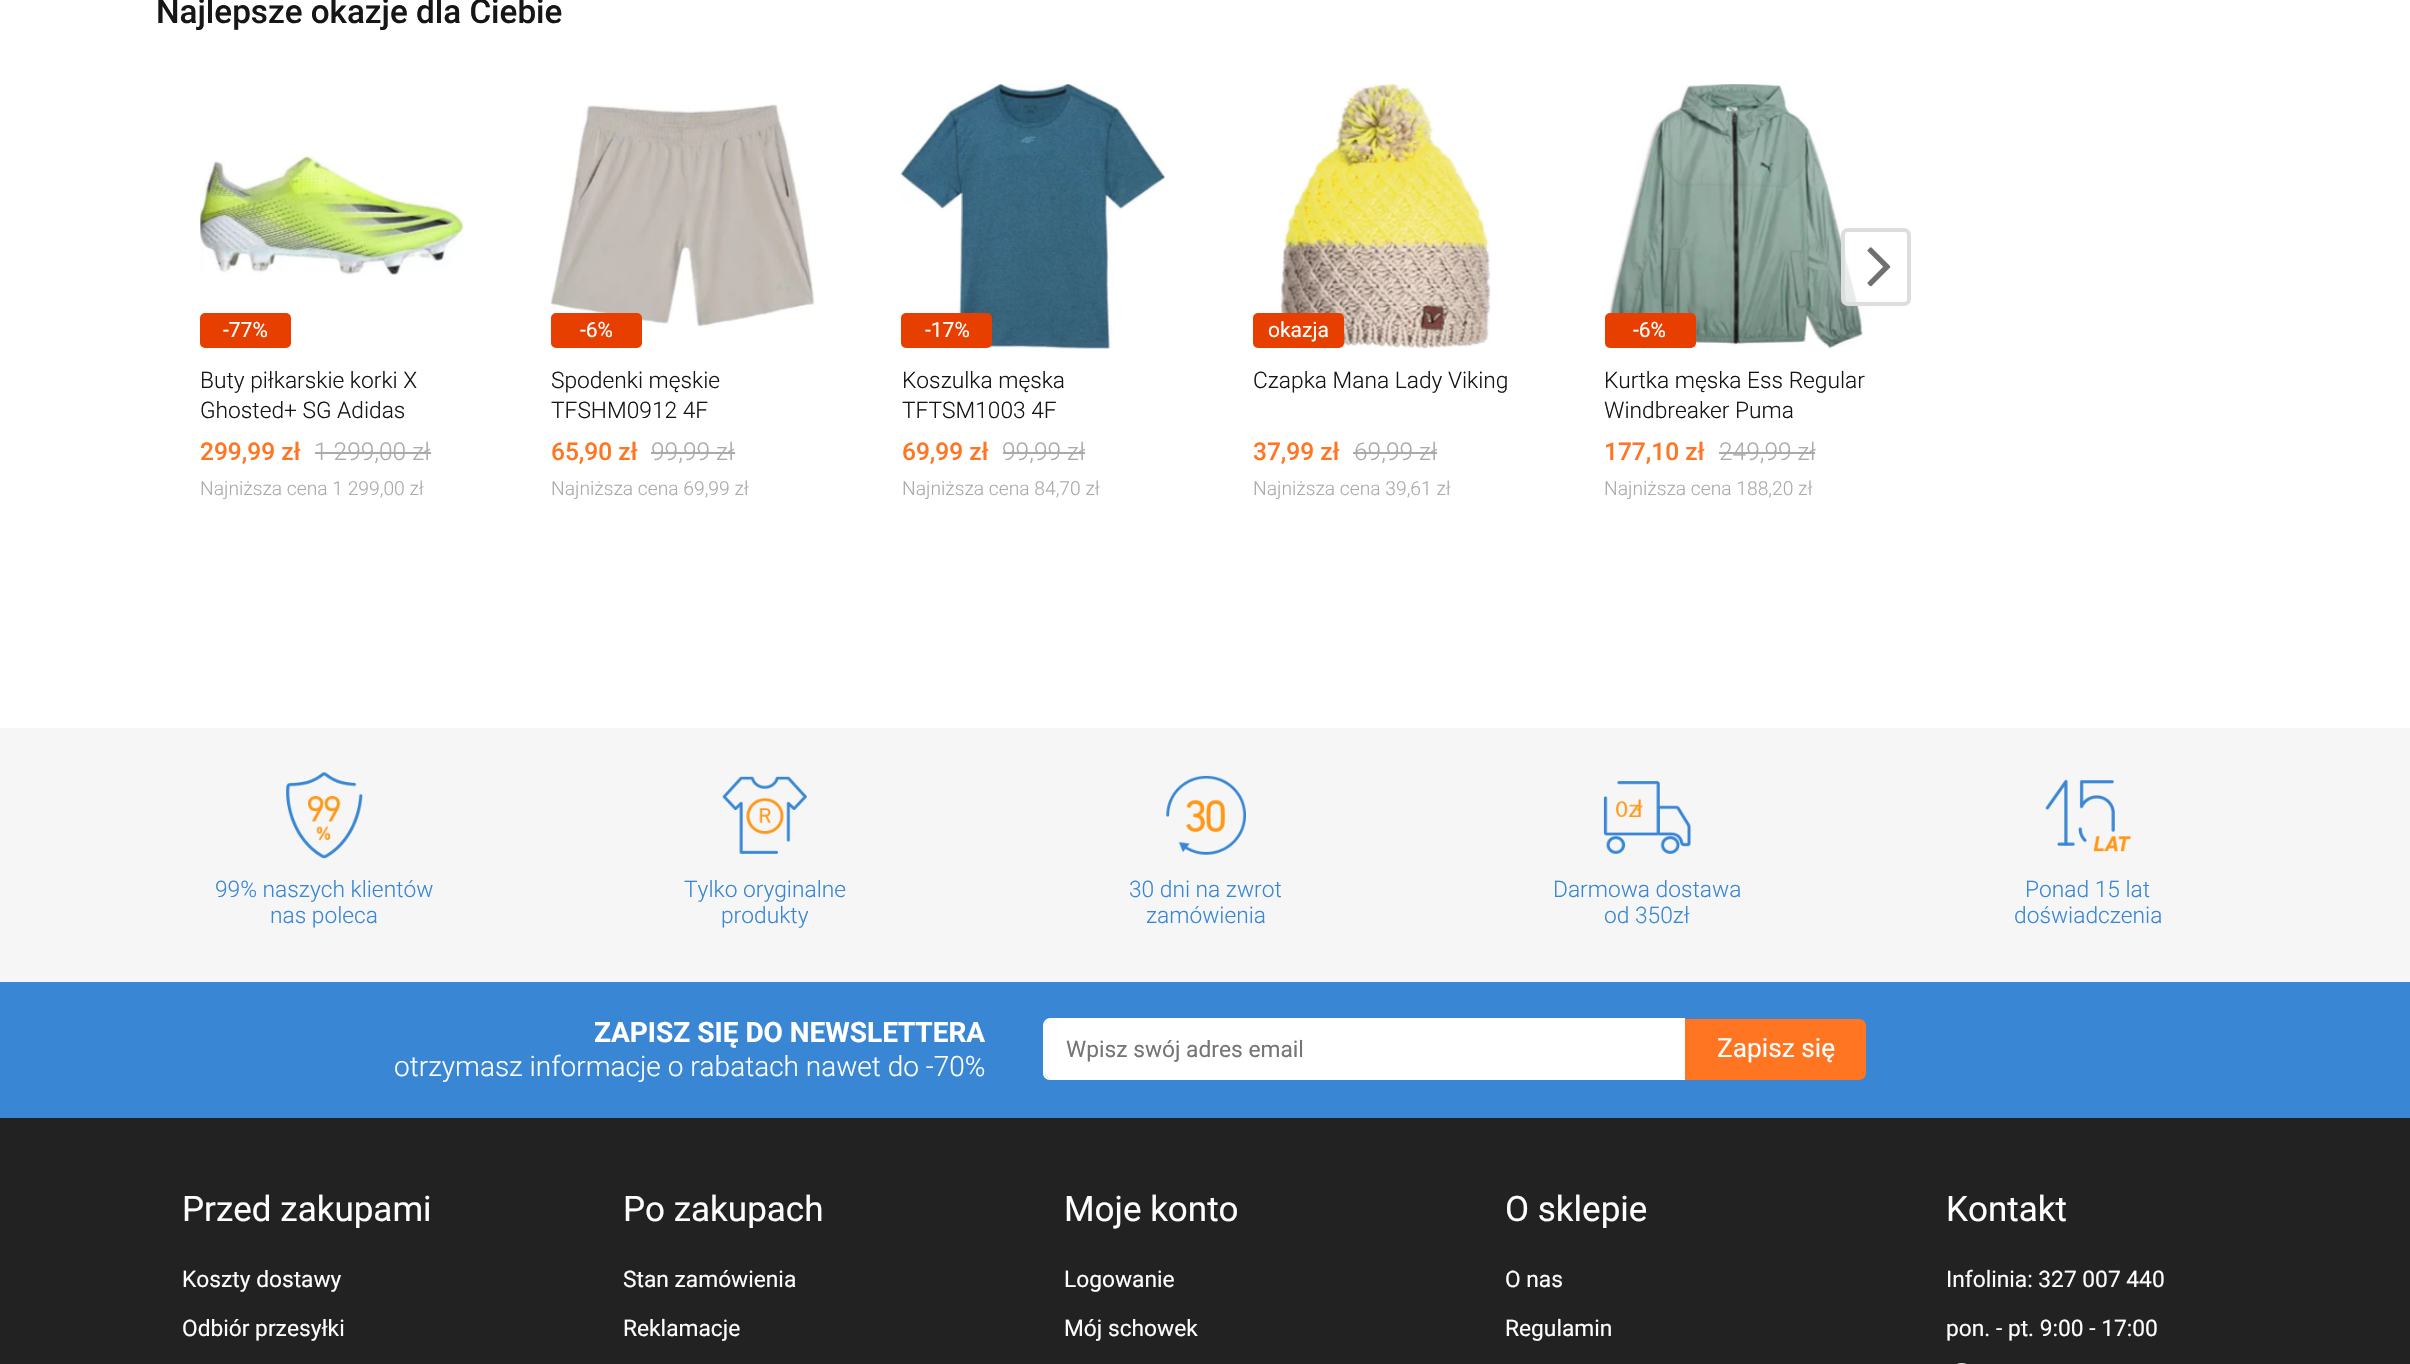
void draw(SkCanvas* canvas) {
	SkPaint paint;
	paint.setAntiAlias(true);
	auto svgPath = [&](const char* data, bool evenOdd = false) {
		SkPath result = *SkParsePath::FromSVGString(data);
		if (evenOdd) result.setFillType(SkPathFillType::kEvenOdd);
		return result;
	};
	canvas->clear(0xffffffff);
	SkFont f1(fontMgr->matchFamilyStyle("Roboto", SkFontStyle(500, SkFontStyle::kNormal_Width, SkFontStyle::kUpright_Slant)), 33.25);
	f1.setSubpixel(true);
	paint.setColor(0xff161616);
	canvas->drawString("Najlepsze okazje dla Ciebie", 156, 23, f1, paint);
	canvas->drawImageRect(SkImages::DeferredFromEncodedData(SkData::MakeFromFileName("img6.png")), SkRect::MakeXYWH(1608, 84, 257, 265), SkSamplingOptions());
	paint.setColor(0xccffffff);
	canvas->drawRoundRect(SkRect::MakeXYWH(1843, 230, 66, 74), 5, 5, paint);
	paint.setStroke(true);
	paint.setStrokeWidth(4);
	paint.setColor(0xffdddddd);
	canvas->drawRoundRect(SkRect::MakeXYWH(1843, 230, 66, 74), 5, 5, paint);
	canvas->drawImageRect(SkImages::DeferredFromEncodedData(SkData::MakeFromFileName("img1.png")), SkRect::MakeXYWH(1867, 247, 24, 40), SkSamplingOptions());
	canvas->drawImageRect(SkImages::DeferredFromEncodedData(SkData::MakeFromFileName("img2.png")), SkRect::MakeXYWH(200, 154, 264, 121), SkSamplingOptions());
	paint.setStroke(false);
	paint.setColor(0xffe73f00);
	canvas->drawRoundRect(SkRect::MakeXYWH(201, 314, 89, 33), 4, 4, paint);
	paint.setStroke(true);
	paint.setStrokeWidth(2);
	canvas->drawRoundRect(SkRect::MakeXYWH(201, 314, 89, 33), 4, 4, paint);
	SkFont f2(fontMgr->matchFamilyStyle("Roboto", SkFontStyle::Normal()), 21);
	f2.setSubpixel(true);
	paint.setStroke(false);
	paint.setColor(0xffffffff);
	canvas->drawString("-77%", 223, 337, f2, paint);
	SkFont f3(fontMgr->matchFamilyStyle("Roboto", SkFontStyle(300, SkFontStyle::kNormal_Width, SkFontStyle::kUpright_Slant)), 22.75);
	f3.setSubpixel(true);
	paint.setColor(0xff161616);
	canvas->drawString("Buty piłkarskie korki X", 200, 388, f3, paint);
	canvas->drawString("Ghosted+ SG Adidas", 200, 418, f3, paint);
	SkFont f4(fontMgr->matchFamilyStyle("Roboto", SkFontStyle(500, SkFontStyle::kNormal_Width, SkFontStyle::kUpright_Slant)), 24.5);
	f4.setSubpixel(true);
	paint.setColor(0xffff7522);
	canvas->drawString("299,99 zł", 200, 460, f4, paint);
	SkFont f5(fontMgr->matchFamilyStyle("Roboto", SkFontStyle(300, SkFontStyle::kNormal_Width, SkFontStyle::kUpright_Slant)), 24.5);
	f5.setSubpixel(true);
	paint.setColor(0xffaaaaaa);
	canvas->drawString("1 299,00 zł", 314, 460, f5, paint);
	canvas->drawRect(SkRect::MakeXYWH(315, 452, 116, 2), paint);
	SkFont f6(fontMgr->matchFamilyStyle("Roboto", SkFontStyle(300, SkFontStyle::kNormal_Width, SkFontStyle::kUpright_Slant)), 19.25);
	f6.setSubpixel(true);
	canvas->drawString("Najniższa cena 1 299,00 zł", 200, 495, f6, paint);
	canvas->drawImageRect(SkImages::DeferredFromEncodedData(SkData::MakeFromFileName("img3.png")), SkRect::MakeXYWH(550, 104, 265, 223), SkSamplingOptions());
	paint.setColor(0xffe73f00);
	canvas->drawRoundRect(SkRect::MakeXYWH(552, 314, 89, 33), 4, 4, paint);
	paint.setStroke(true);
	canvas->drawRoundRect(SkRect::MakeXYWH(552, 314, 89, 33), 4, 4, paint);
	paint.setStroke(false);
	paint.setColor(0xffffffff);
	canvas->drawString("-6%", 580, 337, f2, paint);
	paint.setColor(0xff161616);
	canvas->drawString("Spodenki męskie", 551, 388, f3, paint);
	canvas->drawString("TFSHM0912 4F", 551, 418, f3, paint);
	paint.setColor(0xffff7522);
	canvas->drawString("65,90 zł", 551, 460, f4, paint);
	paint.setColor(0xffaaaaaa);
	canvas->drawString("99,99 zł", 651, 460, f5, paint);
	canvas->drawRect(SkRect::MakeXYWH(651, 452, 84, 2), paint);
	canvas->drawString("Najniższa cena 69,99 zł", 551, 495, f6, paint);
	canvas->drawImageRect(SkImages::DeferredFromEncodedData(SkData::MakeFromFileName("img4.png")), SkRect::MakeXYWH(900, 84, 265, 265), SkSamplingOptions());
	paint.setColor(0xffe73f00);
	canvas->drawRoundRect(SkRect::MakeXYWH(902, 314, 89, 33), 4, 4, paint);
	paint.setStroke(true);
	canvas->drawRoundRect(SkRect::MakeXYWH(902, 314, 89, 33), 4, 4, paint);
	paint.setStroke(false);
	paint.setColor(0xffffffff);
	canvas->drawString("-17%", 925, 337, f2, paint);
	paint.setColor(0xff161616);
	canvas->drawString("Koszulka męska", 902, 388, f3, paint);
	canvas->drawString("TFTSM1003 4F", 902, 418, f3, paint);
	paint.setColor(0xffff7522);
	canvas->drawString("69,99 zł", 902, 460, f4, paint);
	paint.setColor(0xffaaaaaa);
	canvas->drawString("99,99 zł", 1002, 460, f5, paint);
	canvas->drawRect(SkRect::MakeXYWH(1003, 452, 82, 2), paint);
	canvas->drawString("Najniższa cena 84,70 zł", 902, 495, f6, paint);
	canvas->drawImageRect(SkImages::DeferredFromEncodedData(SkData::MakeFromFileName("img5.png")), SkRect::MakeXYWH(1280, 84, 211, 265), SkSamplingOptions());
	paint.setColor(0xffe73f00);
	canvas->drawRoundRect(SkRect::MakeXYWH(1254, 314, 89, 33), 4, 4, paint);
	paint.setStroke(true);
	canvas->drawRoundRect(SkRect::MakeXYWH(1254, 314, 89, 33), 4, 4, paint);
	paint.setStroke(false);
	paint.setColor(0xffffffff);
	canvas->drawString("okazja", 1268, 337, f2, paint);
	paint.setColor(0xff161616);
	canvas->drawString("Czapka Mana Lady Viking", 1253, 388, f3, paint);
	paint.setColor(0xffff7522);
	canvas->drawString("37,99 zł", 1253, 460, f4, paint);
	paint.setColor(0xffaaaaaa);
	canvas->drawString("69,99 zł", 1354, 460, f5, paint);
	canvas->drawRect(SkRect::MakeXYWH(1353, 452, 84, 2), paint);
	canvas->drawString("Najniższa cena 39,61 zł", 1253, 495, f6, paint);
	paint.setColor(0xffe73f00);
	canvas->drawRoundRect(SkRect::MakeXYWH(1606, 314, 89, 33), 4, 4, paint);
	paint.setStroke(true);
	canvas->drawRoundRect(SkRect::MakeXYWH(1606, 314, 89, 33), 4, 4, paint);
	paint.setStroke(false);
	paint.setColor(0xffffffff);
	canvas->drawString("-6%", 1633, 337, f2, paint);
	paint.setColor(0xff161616);
	canvas->drawString("Kurtka męska Ess Regular", 1604, 388, f3, paint);
	canvas->drawString("Windbreaker Puma", 1604, 418, f3, paint);
	paint.setColor(0xffff7522);
	canvas->drawString("177,10 zł", 1604, 460, f4, paint);
	paint.setColor(0xffaaaaaa);
	canvas->drawString("249,99 zł", 1719, 460, f5, paint);
	canvas->drawRect(SkRect::MakeXYWH(1719, 452, 96, 2), paint);
	canvas->drawString("Najniższa cena 188,20 zł", 1604, 495, f6, paint);
	paint.setColor(0xff222222);
	canvas->drawRect(SkRect::MakeXYWH(0, 1118, 2410, 246), paint);
	paint.setColor(0xfff6f6f6);
	canvas->drawRect(SkRect::MakeXYWH(0, 728, 2410, 254), paint);
	canvas->drawImageRect(SkImages::DeferredFromEncodedData(SkData::MakeFromFileName("img7.png")), SkRect::MakeXYWH(286, 772, 77, 87), SkSamplingOptions());
	paint.setColor(0xff3987d4);
	canvas->drawString("99% naszych klientów", 215, 897, f3, paint);
	canvas->drawString("nas poleca", 270, 923, f3, paint);
	canvas->drawImageRect(SkImages::DeferredFromEncodedData(SkData::MakeFromFileName("img8.png")), SkRect::MakeXYWH(722, 776, 85, 78), SkSamplingOptions());
	canvas->drawString("Tylko oryginalne", 684, 897, f3, paint);
	canvas->drawString("produkty", 721, 923, f3, paint);
	canvas->drawImageRect(SkImages::DeferredFromEncodedData(SkData::MakeFromFileName("img9.png")), SkRect::MakeXYWH(1166, 775, 80, 80), SkSamplingOptions());
	canvas->drawString("30 dni na zwrot", 1129, 897, f3, paint);
	canvas->drawString("zamówienia", 1146, 923, f3, paint);
	canvas->drawImageRect(SkImages::DeferredFromEncodedData(SkData::MakeFromFileName("img10.png")), SkRect::MakeXYWH(1603, 781, 88, 73), SkSamplingOptions());
	canvas->drawString("Darmowa dostawa", 1553, 897, f3, paint);
	canvas->drawString("od 350zł", 1604, 923, f3, paint);
	canvas->drawImageRect(SkImages::DeferredFromEncodedData(SkData::MakeFromFileName("img11.png")), SkRect::MakeXYWH(2045, 779, 86, 73), SkSamplingOptions());
	canvas->drawString("Ponad 15 lat", 2025, 897, f3, paint);
	canvas->drawString("doświadczenia", 2014, 923, f3, paint);
	canvas->drawRect(SkRect::MakeXYWH(0, 982, 2410, 136), paint);
	SkFont f7(fontMgr->matchFamilyStyle("Roboto", SkFontStyle::Bold()), 28);
	f7.setSubpixel(true);
	paint.setColor(0xffffffff);
	canvas->drawString("ZAPISZ SIĘ DO NEWSLETTERA", 594, 1042, f7, paint);
	SkFont f8(fontMgr->matchFamilyStyle("Roboto", SkFontStyle(300, SkFontStyle::kNormal_Width, SkFontStyle::kUpright_Slant)), 28);
	f8.setSubpixel(true);
	canvas->drawString("otrzymasz informacje o rabatach nawet do -70%", 394, 1076, f8, paint);
	canvas->drawPath(svgPath("M1050 1020H1685V1078H1050C1047 1078 1045 1076 1045 1073V1025C1045 1022 1047 1020 1050 1020Z"), paint);
	canvas->drawPath(svgPath("M1050 1018H1685V1080H1050C1046 1080 1043 1077 1043 1073V1026C1043 1022 1046 1018 1050 1018ZM1050 1020H1685V1078H1050C1047 1078 1045 1076 1045 1073V1026C1045 1023 1047 1020 1050 1020Z", true), paint);
	SkFont f9(fontMgr->matchFamilyStyle("Roboto", SkFontStyle::Normal()), 22.75);
	f9.setSubpixel(true);
	paint.setColor(0xff757575);
	canvas->drawString("Wpisz swój adres email", 1066, 1057, f9, paint);
	paint.setColor(0xffff7522);
	canvas->drawPath(svgPath("M1685 1019H1859C1863 1019 1866 1022 1866 1026V1073C1866 1077 1863 1080 1859 1080H1685Z"), paint);
	SkFont f10(fontMgr->matchFamilyStyle("Roboto", SkFontStyle::Normal()), 26.25);
	f10.setSubpixel(true);
	paint.setColor(0xffffffff);
	canvas->drawString("Zapisz się", 1717, 1057, f10, paint);
	SkFont f11(fontMgr->matchFamilyStyle("Roboto", SkFontStyle::Normal()), 35);
	f11.setSubpixel(true);
	canvas->drawString("Przed zakupami", 182, 1221, f11, paint);
	canvas->drawString("Koszty dostawy", 182, 1287, f9, paint);
	canvas->drawString("Odbiór przesyłki", 182, 1336, f9, paint);
	canvas->drawString("Po zakupach", 623, 1221, f11, paint);
	canvas->drawString("Stan zamówienia", 623, 1287, f9, paint);
	canvas->drawString("Reklamacje", 623, 1336, f9, paint);
	canvas->drawString("Moje konto", 1064, 1221, f11, paint);
	canvas->drawString("Logowanie", 1064, 1287, f9, paint);
	canvas->drawString("Mój schowek", 1064, 1336, f9, paint);
	canvas->drawString("O sklepie", 1505, 1221, f11, paint);
	canvas->drawString("O nas", 1505, 1287, f9, paint);
	canvas->drawString("Regulamin", 1505, 1336, f9, paint);
	canvas->drawString("Kontakt", 1946, 1221, f11, paint);
	canvas->drawString("Infolinia: 327 007 440", 1946, 1287, f9, paint);
	canvas->drawString("pon. - pt. 9:00 - 17:00", 1946, 1336, f9, paint);
	canvas->drawImageRect(SkImages::DeferredFromEncodedData(SkData::MakeFromFileName("img12.png")), SkRect::MakeXYWH(1957, 1363, 10, 1), SkSamplingOptions());
}
